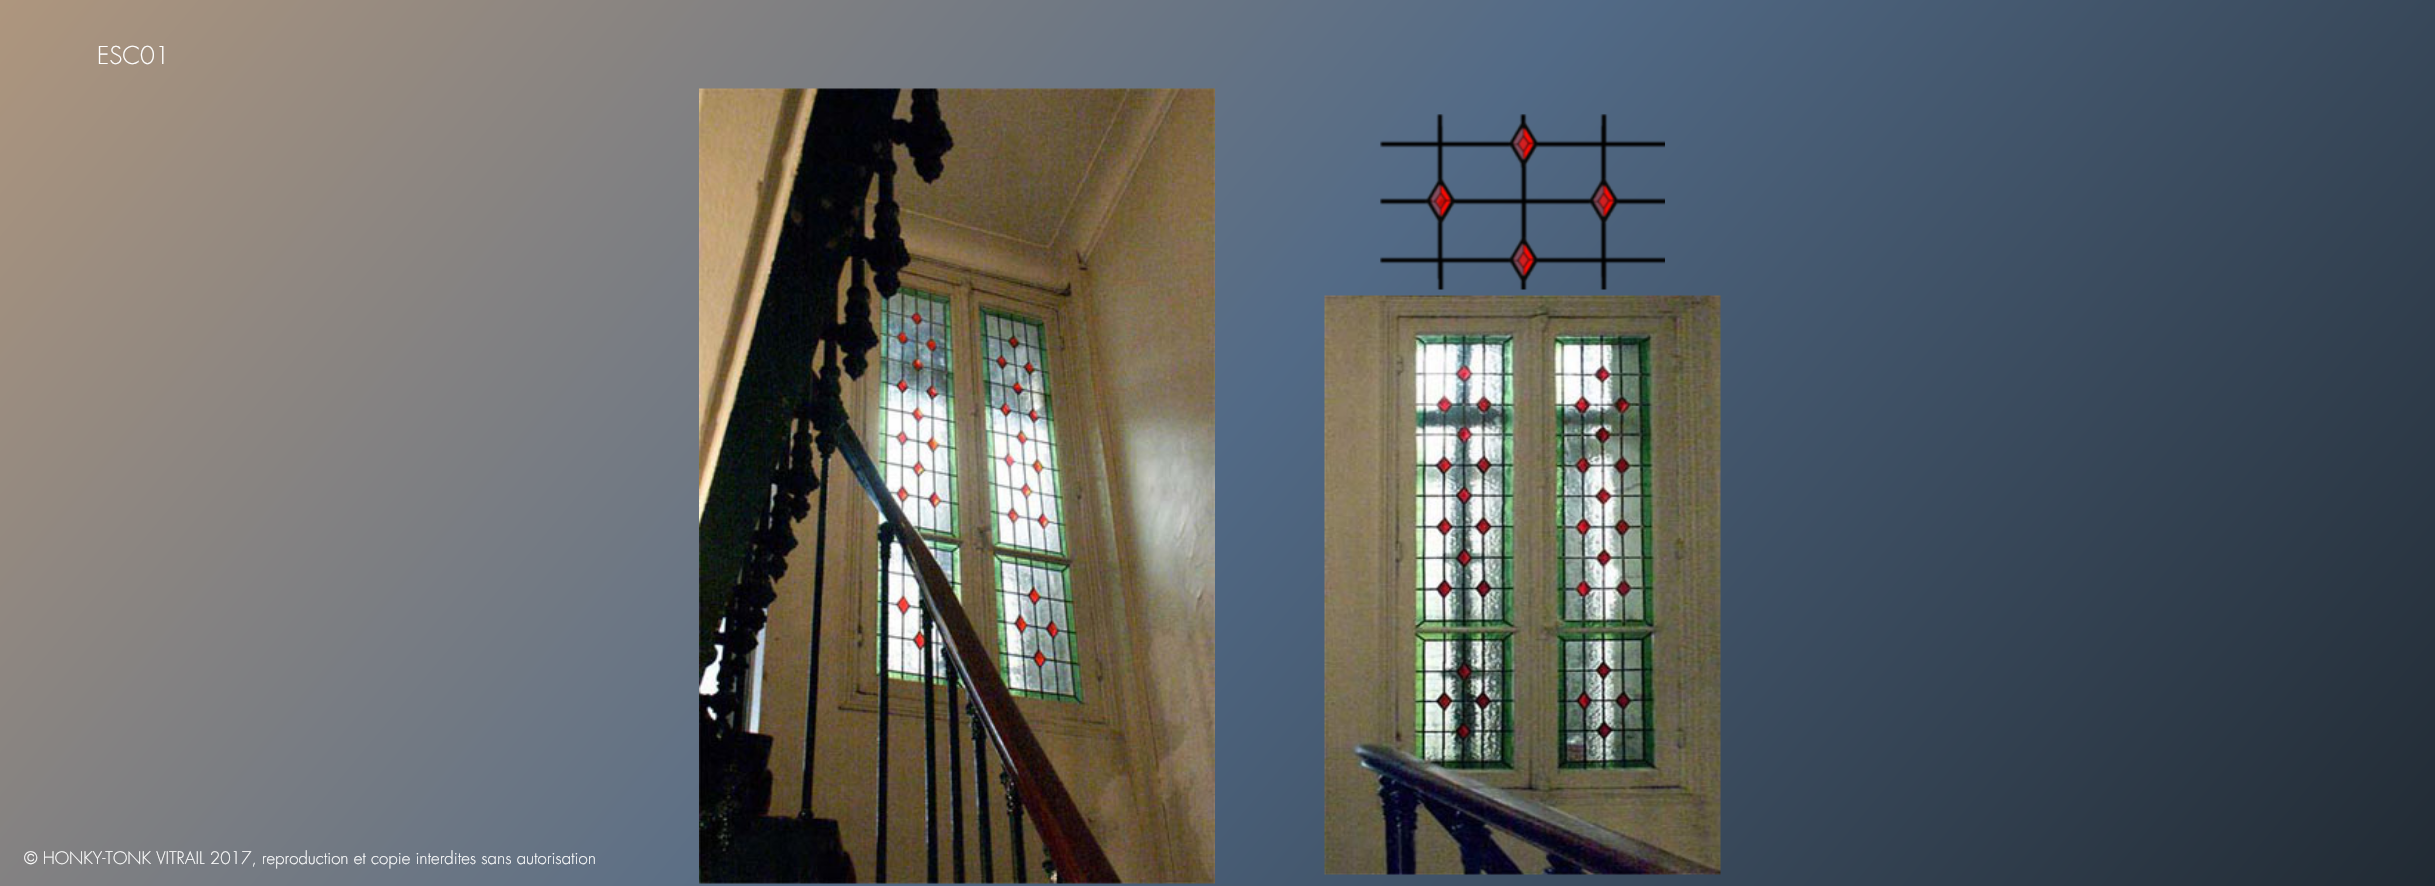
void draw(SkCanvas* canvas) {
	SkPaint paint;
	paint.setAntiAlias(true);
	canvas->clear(0xffffffff);
	{
		const SkColor colors[] = {0xffae967e, 0xff526a86, 0xff212a33};
		const float stops[] = {0, 0.5, 1};
		const SkPoint ends[] = {{285, -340}, {2151, 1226}};
		paint.setShader(SkGradientShader::MakeLinear(ends, colors, stops, 3, SkTileMode::kClamp));
		paint.setAlpha(255);
	}
	canvas->drawRect(SkRect::MakeXYWH(0, 0, 2435, 886), paint);
	SkFont f1(fontMgr->matchFamilyStyle("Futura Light", SkFontStyle(300, SkFontStyle::kNormal_Width, SkFontStyle::kUpright_Slant)), 24);
	f1.setSubpixel(true);
	paint.setShader(nullptr);
	paint.setColor(0xffffffff);
	canvas->drawString("ESC01", 97, 64, f1, paint);
	SkFont f2(fontMgr->matchFamilyStyle("Futura Light", SkFontStyle(300, SkFontStyle::kNormal_Width, SkFontStyle::kUpright_Slant)), 16.8);
	f2.setSubpixel(true);
	canvas->drawString("© HONKY-TONK VITRAIL 2017, reproduction et copie interdites sans autorisation", 24, 864, f2, paint);
	canvas->drawImageRect(SkImages::DeferredFromEncodedData(SkData::MakeFromFileName("img1.png")), SkRect::MakeXYWH(699, 88, 516, 796), SkSamplingOptions());
	canvas->drawImageRect(SkImages::DeferredFromEncodedData(SkData::MakeFromFileName("img2.png")), SkRect::MakeXYWH(1380, 114, 285, 176), SkSamplingOptions());
	canvas->drawImageRect(SkImages::DeferredFromEncodedData(SkData::MakeFromFileName("img3.png")), SkRect::MakeXYWH(1324, 295, 397, 580), SkSamplingOptions());
}
